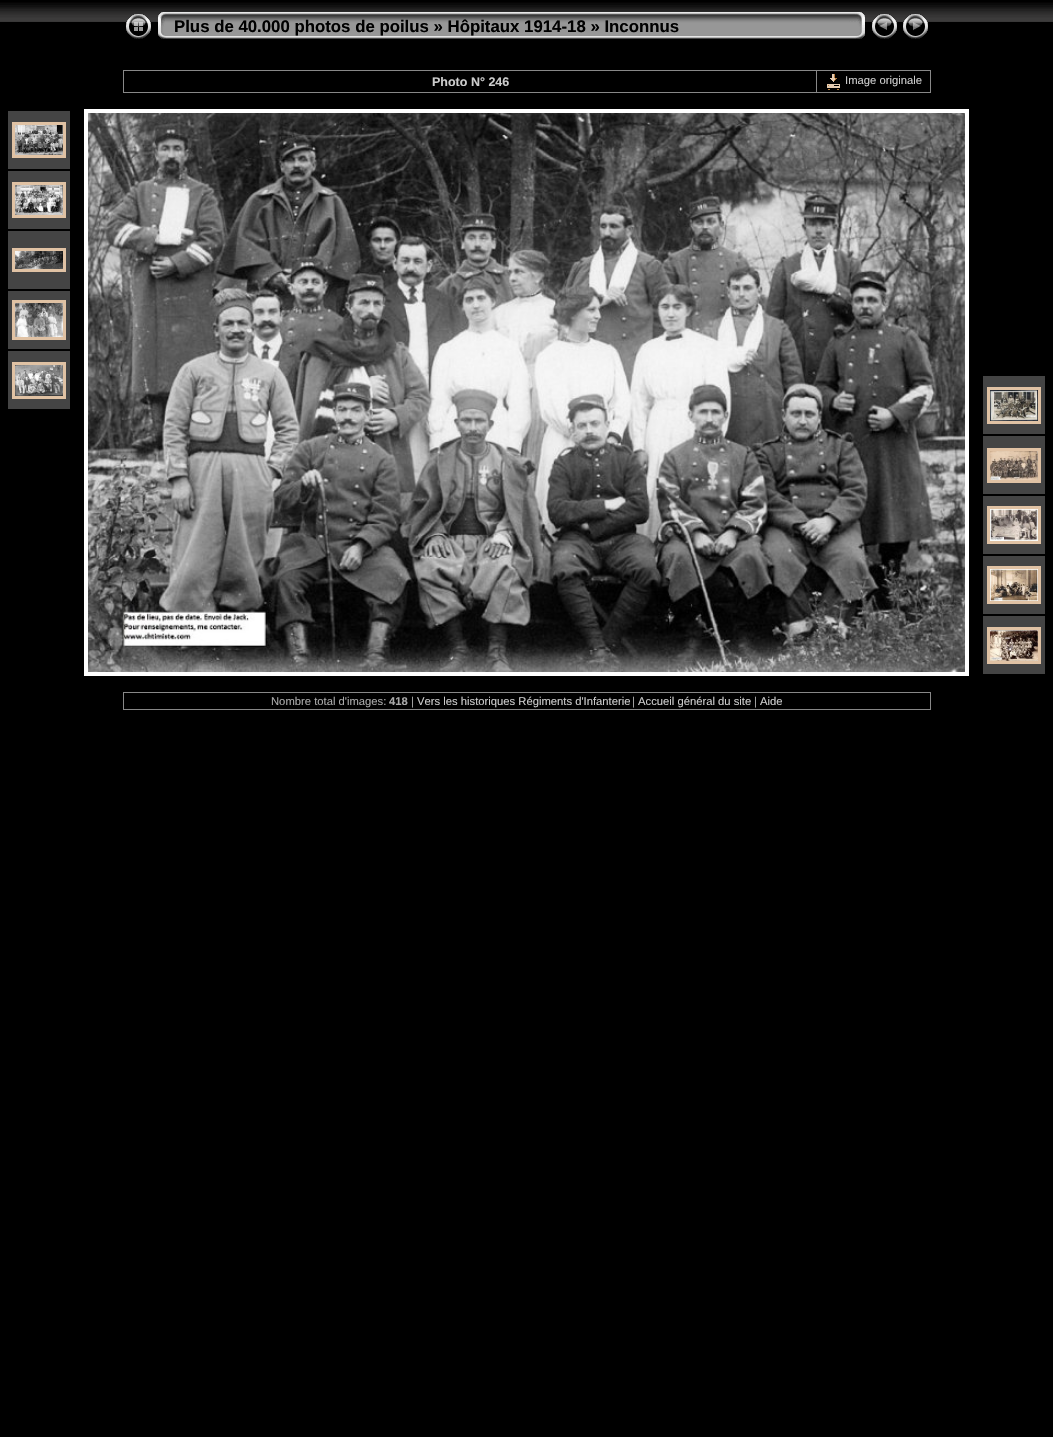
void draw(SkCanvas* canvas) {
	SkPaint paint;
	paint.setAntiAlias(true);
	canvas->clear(0xff000000);
	canvas->drawImageRect(SkImages::DeferredFromEncodedData(SkData::MakeFromFileName("img1.png")), SkRect::MakeXYWH(0, 2, 1053, 20), SkSamplingOptions());
	canvas->drawImageRect(SkImages::DeferredFromEncodedData(SkData::MakeFromFileName("img2.png")), SkRect::MakeXYWH(126, 14, 25, 25), SkSamplingOptions());
	canvas->drawImageRect(SkImages::DeferredFromEncodedData(SkData::MakeFromFileName("img3.png")), SkRect::MakeXYWH(158, 12, 16, 27), SkSamplingOptions());
	canvas->drawImageRect(SkImages::DeferredFromEncodedData(SkData::MakeFromFileName("img4.png")), SkRect::MakeXYWH(174, 12, 675, 27), SkSamplingOptions());
	SkFont f1(fontMgr->matchFamilyStyle("Liberation Sans", SkFontStyle::Bold()), 16.8);
	f1.setSubpixel(true);
	paint.setColor(0xff000000);
	canvas->drawString("Plus de 40.000 photos de poilus » Hôpitaux 1914-18 » Inconnus", 174, 32, f1, paint);
	canvas->drawImageRect(SkImages::DeferredFromEncodedData(SkData::MakeFromFileName("img5.png")), SkRect::MakeXYWH(849, 12, 16, 27), SkSamplingOptions());
	canvas->drawImageRect(SkImages::DeferredFromEncodedData(SkData::MakeFromFileName("img6.png")), SkRect::MakeXYWH(872, 14, 25, 25), SkSamplingOptions());
	canvas->drawImageRect(SkImages::DeferredFromEncodedData(SkData::MakeFromFileName("img7.png")), SkRect::MakeXYWH(903, 14, 25, 25), SkSamplingOptions());
	paint.setColor(0xff888888);
	canvas->drawRect(SkRect::MakeXYWH(123, 70, 808, 1), paint);
	canvas->drawRect(SkRect::MakeXYWH(930, 70, 1, 23), paint);
	canvas->drawRect(SkRect::MakeXYWH(123, 92, 808, 1), paint);
	canvas->drawRect(SkRect::MakeXYWH(123, 70, 1, 23), paint);
	SkFont f2(fontMgr->matchFamilyStyle("Liberation Sans", SkFontStyle::Bold()), 12.5);
	f2.setSubpixel(true);
	paint.setColor(0xffcccccc);
	canvas->drawString("Photo N° 246", 432, 86, f2, paint);
	paint.setColor(0xff888888);
	canvas->drawRect(SkRect::MakeXYWH(816, 70, 1, 23), paint);
	canvas->drawImageRect(SkImages::DeferredFromEncodedData(SkData::MakeFromFileName("img8.png")), SkRect::MakeXYWH(827, 74, 13, 16), SkSamplingOptions());
	SkFont f3(fontMgr->matchFamilyStyle("Liberation Sans", SkFontStyle::Normal()), 11.25);
	f3.setSubpixel(true);
	paint.setColor(0xffcccccc);
	canvas->drawString("Image originale", 845, 84, f3, paint);
	paint.setColor(0xff444444);
	canvas->drawRect(SkRect::MakeXYWH(8, 111, 62, 58), paint);
	paint.setStroke(true);
	paint.setStrokeWidth(3);
	paint.setColor(0xffe0c2a4);
	canvas->drawRect(SkRect::MakeXYWH(13.5, 123.5, 51, 33), paint);
	canvas->drawImageRect(SkImages::DeferredFromEncodedData(SkData::MakeFromFileName("img9.png")), SkRect::MakeXYWH(15, 125, 48, 30), SkSamplingOptions());
	paint.setStroke(false);
	paint.setColor(0xff444444);
	canvas->drawRect(SkRect::MakeXYWH(8, 171, 62, 58), paint);
	paint.setStroke(true);
	paint.setColor(0xffe0c2a4);
	canvas->drawRect(SkRect::MakeXYWH(13.5, 183.5, 51, 33), paint);
	canvas->drawImageRect(SkImages::DeferredFromEncodedData(SkData::MakeFromFileName("img10.png")), SkRect::MakeXYWH(15, 185, 48, 30), SkSamplingOptions());
	paint.setStroke(false);
	paint.setColor(0xff444444);
	canvas->drawRect(SkRect::MakeXYWH(8, 231, 62, 58), paint);
	paint.setStroke(true);
	paint.setColor(0xffe0c2a4);
	canvas->drawRect(SkRect::MakeXYWH(13.5, 249.5, 51, 21), paint);
	canvas->drawImageRect(SkImages::DeferredFromEncodedData(SkData::MakeFromFileName("img11.png")), SkRect::MakeXYWH(15, 251, 48, 18), SkSamplingOptions());
	paint.setStroke(false);
	paint.setColor(0xff444444);
	canvas->drawRect(SkRect::MakeXYWH(8, 291, 62, 58), paint);
	paint.setStroke(true);
	paint.setColor(0xffe0c2a4);
	canvas->drawRect(SkRect::MakeXYWH(13.5, 301.5, 51, 37), paint);
	canvas->drawImageRect(SkImages::DeferredFromEncodedData(SkData::MakeFromFileName("img12.png")), SkRect::MakeXYWH(15, 303, 48, 34), SkSamplingOptions());
	paint.setStroke(false);
	paint.setColor(0xff444444);
	canvas->drawRect(SkRect::MakeXYWH(8, 351, 62, 58), paint);
	paint.setStroke(true);
	paint.setColor(0xffe0c2a4);
	canvas->drawRect(SkRect::MakeXYWH(13.5, 363.5, 51, 34), paint);
	canvas->drawImageRect(SkImages::DeferredFromEncodedData(SkData::MakeFromFileName("img13.png")), SkRect::MakeXYWH(15, 365, 48, 31), SkSamplingOptions());
	paint.setStrokeWidth(4);
	paint.setColor(0xffffffff);
	canvas->drawRect(SkRect::MakeXYWH(86, 111, 881, 563), paint);
	canvas->drawImageRect(SkImages::DeferredFromEncodedData(SkData::MakeFromFileName("img14.png")), SkRect::MakeXYWH(88, 113, 877, 559), SkSamplingOptions());
	paint.setStroke(false);
	paint.setColor(0xff444444);
	canvas->drawRect(SkRect::MakeXYWH(983, 376, 62, 58), paint);
	paint.setStroke(true);
	paint.setStrokeWidth(3);
	paint.setColor(0xffe0c2a4);
	canvas->drawRect(SkRect::MakeXYWH(988.5, 388.5, 51, 34), paint);
	canvas->drawImageRect(SkImages::DeferredFromEncodedData(SkData::MakeFromFileName("img15.png")), SkRect::MakeXYWH(990, 390, 48, 31), SkSamplingOptions());
	paint.setStroke(false);
	paint.setColor(0xff444444);
	canvas->drawRect(SkRect::MakeXYWH(983, 436, 62, 58), paint);
	paint.setStroke(true);
	paint.setColor(0xffe0c2a4);
	canvas->drawRect(SkRect::MakeXYWH(988.5, 449.5, 51, 32), paint);
	canvas->drawImageRect(SkImages::DeferredFromEncodedData(SkData::MakeFromFileName("img16.png")), SkRect::MakeXYWH(990, 451, 48, 29), SkSamplingOptions());
	paint.setStroke(false);
	paint.setColor(0xff444444);
	canvas->drawRect(SkRect::MakeXYWH(983, 496, 62, 58), paint);
	paint.setStroke(true);
	paint.setColor(0xffe0c2a4);
	canvas->drawRect(SkRect::MakeXYWH(988.5, 507.5, 51, 35), paint);
	canvas->drawImageRect(SkImages::DeferredFromEncodedData(SkData::MakeFromFileName("img17.png")), SkRect::MakeXYWH(990, 509, 48, 32), SkSamplingOptions());
	paint.setStroke(false);
	paint.setColor(0xff444444);
	canvas->drawRect(SkRect::MakeXYWH(983, 556, 62, 58), paint);
	paint.setStroke(true);
	paint.setColor(0xffe0c2a4);
	canvas->drawRect(SkRect::MakeXYWH(988.5, 567.5, 51, 35), paint);
	canvas->drawImageRect(SkImages::DeferredFromEncodedData(SkData::MakeFromFileName("img18.png")), SkRect::MakeXYWH(990, 569, 48, 32), SkSamplingOptions());
	paint.setStroke(false);
	paint.setColor(0xff444444);
	canvas->drawRect(SkRect::MakeXYWH(983, 616, 62, 58), paint);
	paint.setStroke(true);
	paint.setColor(0xffe0c2a4);
	canvas->drawRect(SkRect::MakeXYWH(988.5, 628.5, 51, 34), paint);
	canvas->drawImageRect(SkImages::DeferredFromEncodedData(SkData::MakeFromFileName("img19.png")), SkRect::MakeXYWH(990, 630, 48, 31), SkSamplingOptions());
	paint.setStroke(false);
	paint.setColor(0xff888888);
	canvas->drawRect(SkRect::MakeXYWH(123, 692, 808, 1), paint);
	canvas->drawRect(SkRect::MakeXYWH(930, 692, 1, 18), paint);
	canvas->drawRect(SkRect::MakeXYWH(123, 709, 808, 1), paint);
	canvas->drawRect(SkRect::MakeXYWH(123, 692, 1, 18), paint);
	paint.setColor(0xffaaaaaa);
	canvas->drawString("Nombre total d'images:", 271, 705, f3, paint);
	SkFont f4(fontMgr->matchFamilyStyle("Liberation Sans", SkFontStyle::Bold()), 11.25);
	f4.setSubpixel(true);
	canvas->drawString("418", 389, 705, f4, paint);
	canvas->drawString("|", 411, 705, f3, paint);
	paint.setColor(0xffcccccc);
	canvas->drawString("Vers les historiques Régiments d'Infanterie", 417, 705, f3, paint);
	paint.setColor(0xffaaaaaa);
	canvas->drawString("|", 632, 705, f3, paint);
	paint.setColor(0xffcccccc);
	canvas->drawString("Accueil général du site", 638, 705, f3, paint);
	paint.setColor(0xffaaaaaa);
	canvas->drawString("|", 754, 705, f3, paint);
	paint.setColor(0xffcccccc);
	canvas->drawString("Aide", 760, 705, f3, paint);
}
